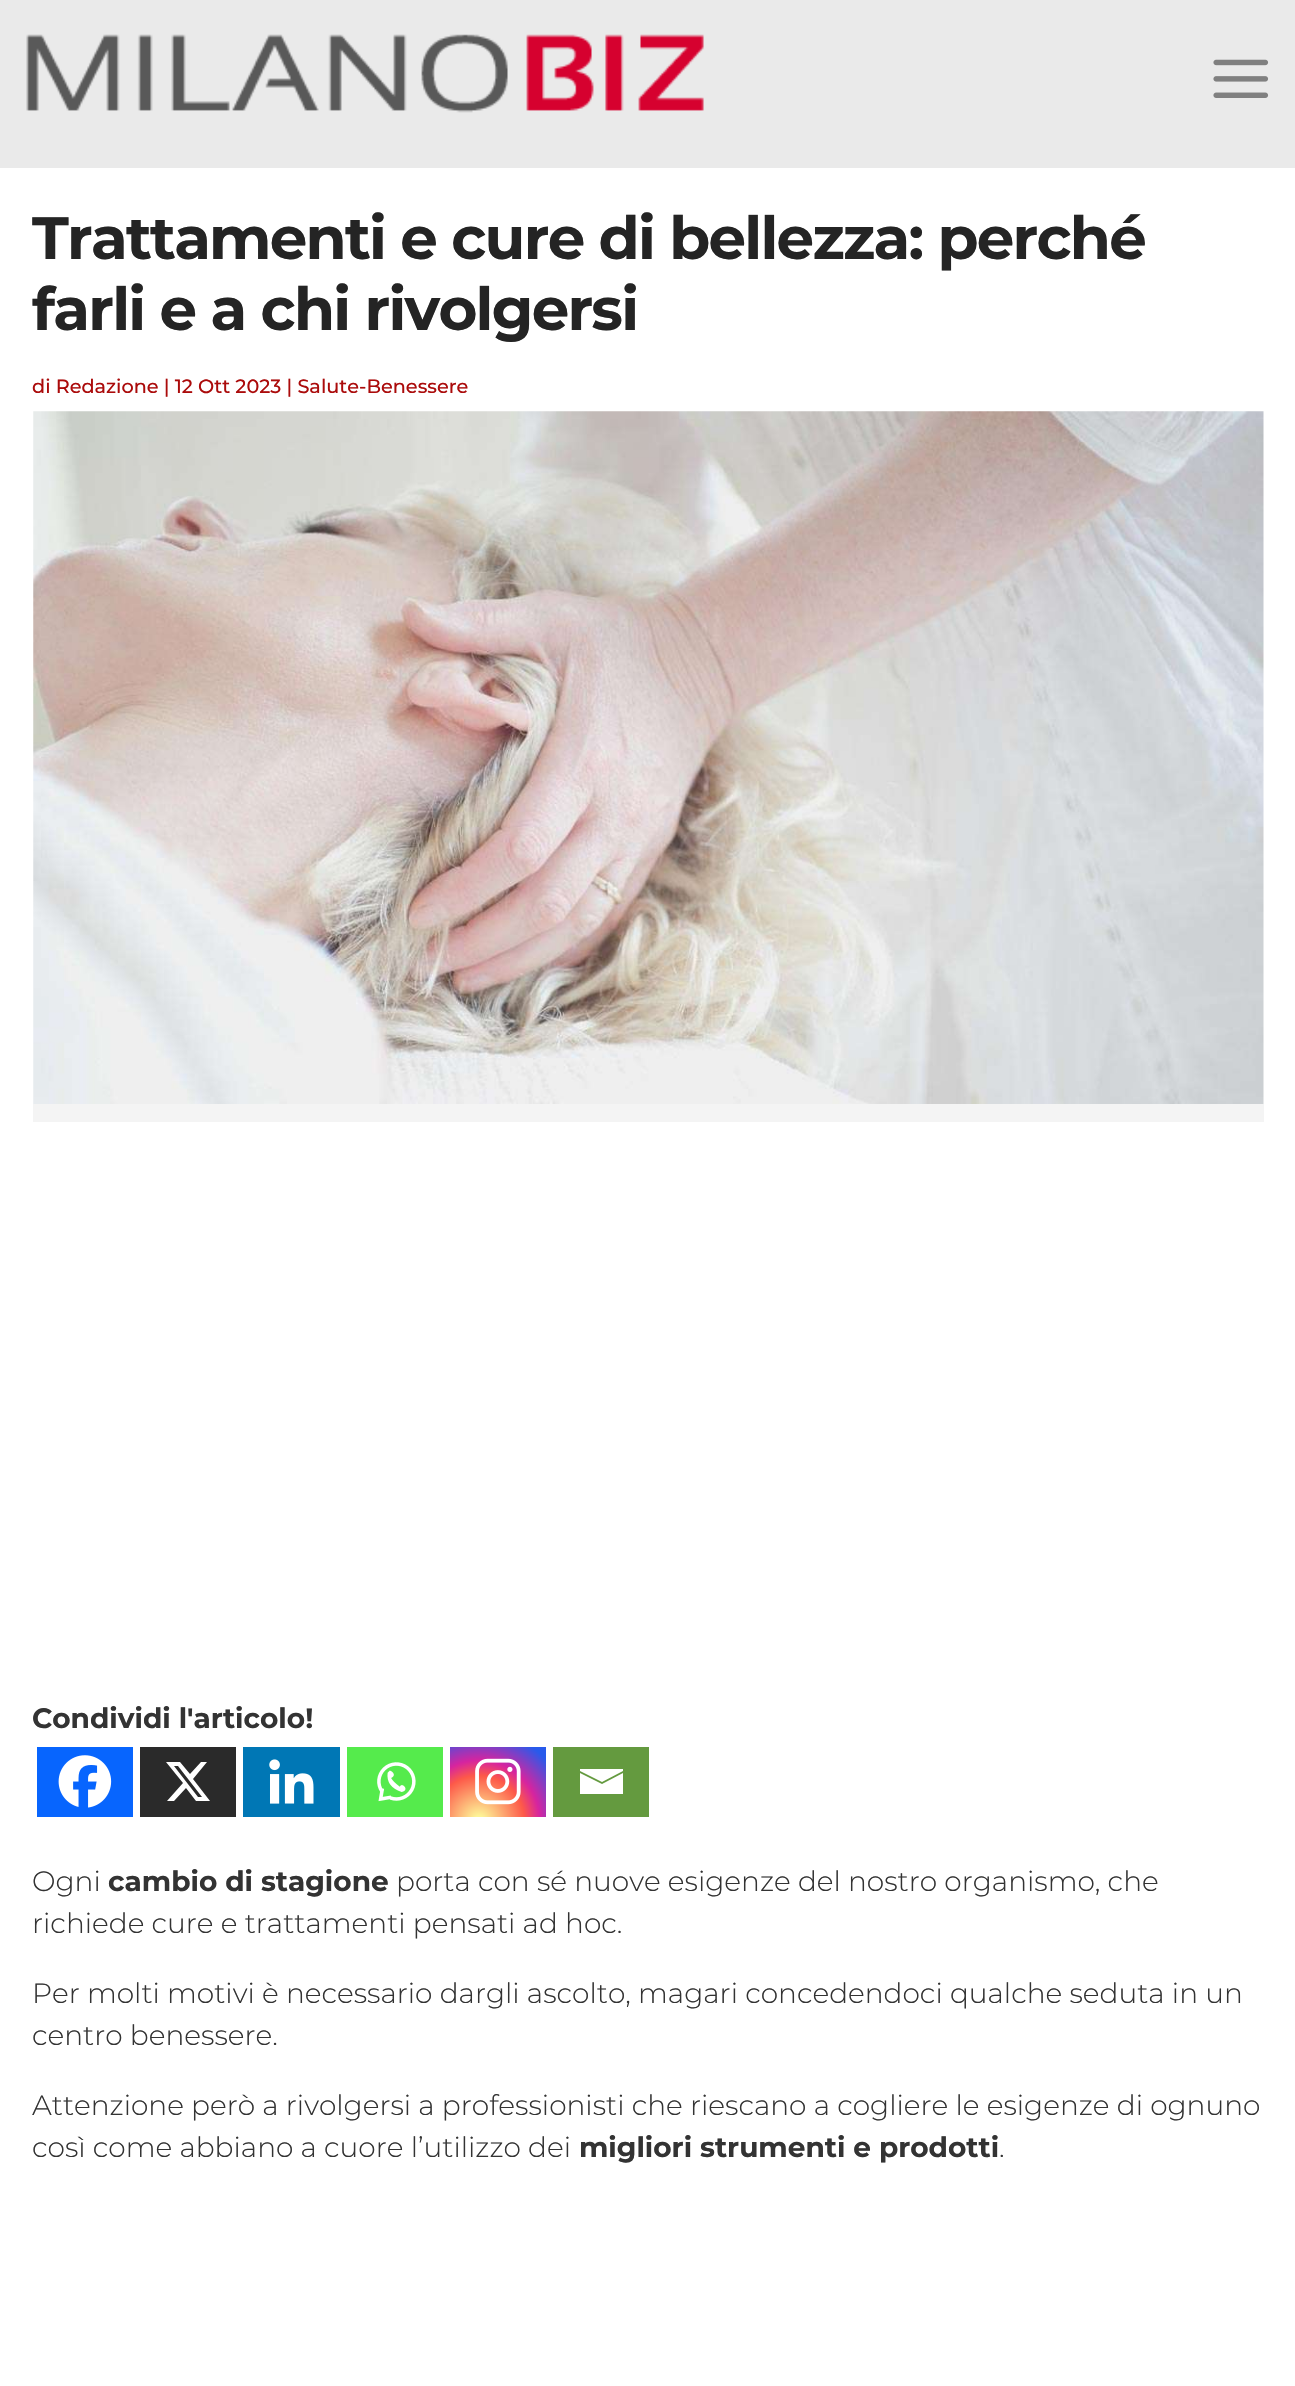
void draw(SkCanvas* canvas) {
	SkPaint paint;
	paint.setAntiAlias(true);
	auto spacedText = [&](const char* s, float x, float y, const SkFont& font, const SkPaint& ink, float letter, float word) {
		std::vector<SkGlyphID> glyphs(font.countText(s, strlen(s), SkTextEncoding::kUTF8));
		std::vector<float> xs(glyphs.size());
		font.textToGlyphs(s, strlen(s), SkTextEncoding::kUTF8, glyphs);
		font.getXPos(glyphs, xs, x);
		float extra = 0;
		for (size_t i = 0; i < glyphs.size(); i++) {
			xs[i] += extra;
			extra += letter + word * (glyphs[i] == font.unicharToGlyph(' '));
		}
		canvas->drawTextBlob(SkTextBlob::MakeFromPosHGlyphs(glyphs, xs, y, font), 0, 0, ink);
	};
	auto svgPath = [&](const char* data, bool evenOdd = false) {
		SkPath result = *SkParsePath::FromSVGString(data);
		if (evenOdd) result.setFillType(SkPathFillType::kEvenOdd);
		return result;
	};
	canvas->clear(0xffffffff);
	paint.setColor(0xffeaeaea);
	canvas->drawRect(SkRect::MakeXYWH(0, 0, 1295, 168), paint);
	canvas->drawImageRect(SkImages::DeferredFromEncodedData(SkData::MakeFromFileName("img1.png")), SkRect::MakeXYWH(26, 34, 678, 79), SkSamplingOptions());
	canvas->drawImageRect(SkImages::DeferredFromEncodedData(SkData::MakeFromFileName("img2.png")), SkRect::MakeXYWH(1213, 59, 56, 39), SkSamplingOptions());
	SkFont f1(fontMgr->matchFamilyStyle("Montserrat", SkFontStyle(100, SkFontStyle::kNormal_Width, SkFontStyle::kUpright_Slant)), 59.5);
	f1.setSubpixel(true);
	paint.setColor(0xff242424);
	spacedText("Trattamenti e cure di bellezza: perché", 32, 259, f1, paint, -1.75, 0);
	spacedText("farli e a chi rivolgersi", 32, 330, f1, paint, -1.75, 0);
	SkFont f2(fontMgr->matchFamilyStyle("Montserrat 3", SkFontStyle(100, SkFontStyle::kNormal_Width, SkFontStyle::kUpright_Slant)), 19.25);
	f2.setSubpixel(true);
	paint.setColor(0xffab0b0b);
	canvas->drawString("di Redazione | 12 Ott 2023 | Salute-Benessere", 32, 393, f2, paint);
	canvas->drawImageRect(SkImages::DeferredFromEncodedData(SkData::MakeFromFileName("img3.png")), SkRect::MakeXYWH(33, 411, 1231, 693), SkSamplingOptions());
	paint.setColor(0xfff4f4f4);
	canvas->drawRect(SkRect::MakeXYWH(33, 1104, 1231, 18), paint);
	SkFont f3(fontMgr->matchFamilyStyle("Montserrat", SkFontStyle(100, SkFontStyle::kNormal_Width, SkFontStyle::kUpright_Slant)), 28);
	f3.setSubpixel(true);
	paint.setColor(0xff333333);
	canvas->drawString("Condividi l'articolo!", 32, 1728, f3, paint);
	paint.setColor(0xff0765fe);
	canvas->drawRect(SkRect::MakeXYWH(37, 1747, 96, 70), paint);
	canvas->drawImageRect(SkImages::DeferredFromEncodedData(SkData::MakeFromFileName("img4.png")), SkRect::MakeXYWH(58, 1755, 54, 53), SkSamplingOptions());
	paint.setColor(0xff2a2a2a);
	canvas->drawRect(SkRect::MakeXYWH(140, 1747, 96, 70), paint);
	paint.setColor(0xffffffff);
	canvas->drawPath(svgPath("M201 1762H207L193 1779L210 1801H196L186 1788L174 1801H167L183 1783L166 1762H180L190 1774ZM198 1797H202L178 1766H174Z"), paint);
	paint.setColor(0xff0077b5);
	canvas->drawRect(SkRect::MakeXYWH(243, 1747, 97, 70), paint);
	canvas->drawImageRect(SkImages::DeferredFromEncodedData(SkData::MakeFromFileName("img5.png")), SkRect::MakeXYWH(269, 1759, 45, 45), SkSamplingOptions());
	paint.setColor(0xff55eb4c);
	canvas->drawRect(SkRect::MakeXYWH(347, 1747, 96, 70), paint);
	canvas->drawImageRect(SkImages::DeferredFromEncodedData(SkData::MakeFromFileName("img6.png")), SkRect::MakeXYWH(377, 1762, 39, 40), SkSamplingOptions());
	{
		const SkColor colors[] = {0xfffdf497, 0xfffdf497, 0xfffd5949, 0xffd6249f, 0xff285aeb};
		const float stops[] = {0, 0.05, 0.45, 0.6, 0.9};
		paint.setShader(SkGradientShader::MakeRadial({479, 1821}, 101, colors, stops, 5, SkTileMode::kClamp));
		paint.setAlpha(255);
	}
	canvas->drawRect(SkRect::MakeXYWH(450, 1747, 96, 70), paint);
	canvas->drawImageRect(SkImages::DeferredFromEncodedData(SkData::MakeFromFileName("img7.png")), SkRect::MakeXYWH(475, 1758, 46, 47), SkSamplingOptions());
	paint.setShader(nullptr);
	paint.setColor(0xff649a3f);
	canvas->drawRect(SkRect::MakeXYWH(553, 1747, 96, 70), paint);
	paint.setColor(0xffffffff);
	canvas->drawPath(svgPath("M578 1769H623V1771L602 1782L580 1771V1769M580 1773L602 1784L623 1773V1794H580V1773"), paint);
	SkFont f4(fontMgr->matchFamilyStyle("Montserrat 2", SkFontStyle(100, SkFontStyle::kNormal_Width, SkFontStyle::kUpright_Slant)), 28);
	f4.setSubpixel(true);
	paint.setColor(0xff333333);
	canvas->drawString("Ogni", 32, 1891, f4, paint);
	canvas->drawString("cambio di stagione", 108, 1891, f3, paint);
	canvas->drawString("porta con sé nuove esigenze del nostro organismo, che", 396, 1891, f4, paint);
	canvas->drawString("richiede cure e trattamenti pensati ad hoc.", 32, 1933, f4, paint);
	canvas->drawString("Per molti motivi è necessario dargli ascolto, magari concedendoci qualche seduta in un", 32, 2003, f4, paint);
	canvas->drawString("centro benessere.", 32, 2045, f4, paint);
	canvas->drawString("Attenzione però a rivolgersi a professionisti che riescano a cogliere le esigenze di ognuno", 32, 2115, f4, paint);
	canvas->drawString("così come abbiano a cuore l’utilizzo dei", 32, 2157, f4, paint);
	canvas->drawString("migliori strumenti e prodotti", 579, 2157, f3, paint);
	canvas->drawString(".", 999, 2157, f4, paint);
}
